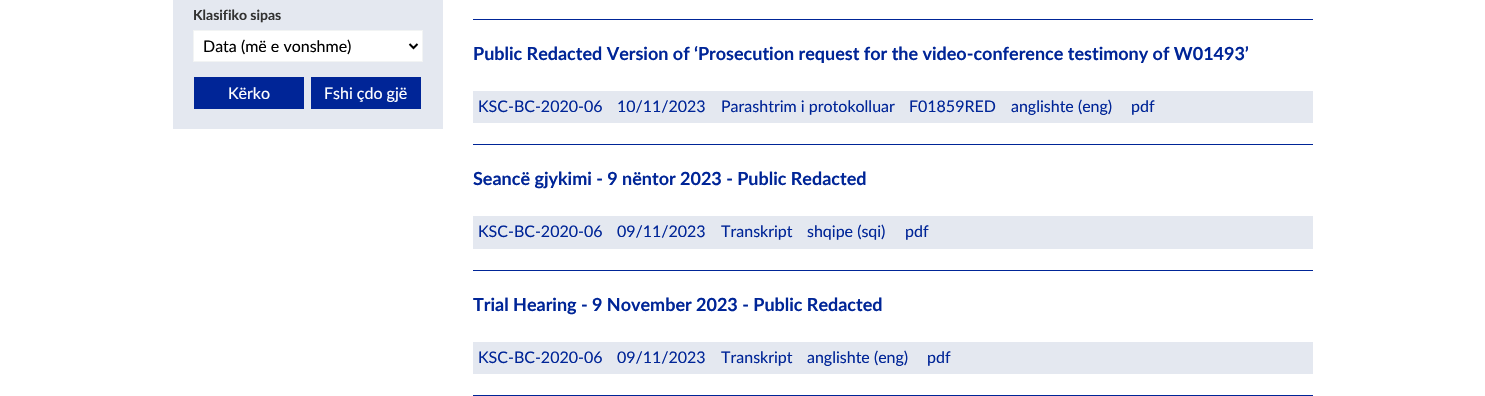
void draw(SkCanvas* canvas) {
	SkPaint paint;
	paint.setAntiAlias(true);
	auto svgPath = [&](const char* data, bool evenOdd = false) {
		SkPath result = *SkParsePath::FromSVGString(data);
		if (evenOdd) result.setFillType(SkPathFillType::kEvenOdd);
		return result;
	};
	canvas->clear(0xffffffff);
	paint.setColor(0xffe4e8f0);
	canvas->drawRect(SkRect::MakeXYWH(173, 0, 270, 129), paint);
	SkFont f1(fontMgr->matchFamilyStyle("Lato", SkFontStyle::Bold()), 14);
	f1.setSubpixel(true);
	paint.setColor(0xff333333);
	canvas->drawString("Klasifiko sipas", 193, 20, f1, paint);
	paint.setColor(0xffffffff);
	canvas->drawRect(SkRect::MakeXYWH(193.5, 30.5, 229, 31), paint);
	paint.setStroke(true);
	paint.setStrokeWidth(1);
	paint.setColor(0xfff2f4f4);
	canvas->drawRect(SkRect::MakeXYWH(193.5, 30.5, 229, 31), paint);
	paint.setStrokeWidth(2);
	paint.setColor(0xff000000);
	canvas->drawPath(svgPath("M409.5 44L413.5 48L417.5 44"), paint);
	SkFont f2(fontMgr->matchFamilyStyle("Lato", SkFontStyle::Normal()), 16);
	f2.setSubpixel(true);
	paint.setStroke(false);
	canvas->drawString("Data (më e vonshme)", 203, 52, f2, paint);
	paint.setColor(0xff002597);
	canvas->drawRect(SkRect::MakeXYWH(194, 77, 110, 32), paint);
	paint.setColor(0xffffffff);
	canvas->drawString("Kërko", 228, 99, f2, paint);
	paint.setColor(0xff002597);
	canvas->drawRect(SkRect::MakeXYWH(311, 77, 110, 32), paint);
	paint.setColor(0xffffffff);
	canvas->drawString("Fshi çdo gjë", 324, 99, f2, paint);
	paint.setColor(0xff002597);
	canvas->drawRect(SkRect::MakeXYWH(473, 19, 840, 1), paint);
	canvas->drawRect(SkRect::MakeXYWH(473, 144, 840, 1), paint);
	SkFont f3(fontMgr->matchFamilyStyle("Lato", SkFontStyle::Bold()), 18);
	f3.setSubpixel(true);
	canvas->drawString("Public Redacted Version of ‘Prosecution request for the video-conference testimony of W01493’", 473, 60, f3, paint);
	paint.setColor(0xffe4e8f0);
	canvas->drawRect(SkRect::MakeXYWH(473, 91, 840, 32), paint);
	paint.setColor(0xff002597);
	canvas->drawString("KSC-BC-2020-06", 478, 112, f2, paint);
	canvas->drawString("10/11/2023", 617, 112, f2, paint);
	canvas->drawString("Parashtrim i protokolluar", 721, 112, f2, paint);
	canvas->drawString("F01859RED", 909, 112, f2, paint);
	canvas->drawString("anglishte (eng)", 1011, 112, f2, paint);
	canvas->drawString("pdf", 1131, 112, f2, paint);
	canvas->drawRect(SkRect::MakeXYWH(473, 270, 840, 1), paint);
	canvas->drawString("Seancë gjykimi - 9 nëntor 2023 - Public Redacted", 473, 185, f3, paint);
	paint.setColor(0xffe4e8f0);
	canvas->drawRect(SkRect::MakeXYWH(473, 216, 840, 33), paint);
	paint.setColor(0xff002597);
	canvas->drawString("KSC-BC-2020-06", 478, 237, f2, paint);
	canvas->drawString("09/11/2023", 617, 237, f2, paint);
	canvas->drawString("Transkript", 721, 237, f2, paint);
	canvas->drawString("shqipe (sqi)", 807, 237, f2, paint);
	canvas->drawString("pdf", 905, 237, f2, paint);
	canvas->drawRect(SkRect::MakeXYWH(473, 395, 840, 1), paint);
	canvas->drawString("Trial Hearing - 9 November 2023 - Public Redacted", 473, 311, f3, paint);
	paint.setColor(0xffe4e8f0);
	canvas->drawRect(SkRect::MakeXYWH(473, 342, 840, 32), paint);
	paint.setColor(0xff002597);
	canvas->drawString("KSC-BC-2020-06", 478, 363, f2, paint);
	canvas->drawString("09/11/2023", 617, 363, f2, paint);
	canvas->drawString("Transkript", 721, 363, f2, paint);
	canvas->drawString("anglishte (eng)", 807, 363, f2, paint);
	canvas->drawString("pdf", 927, 363, f2, paint);
}
